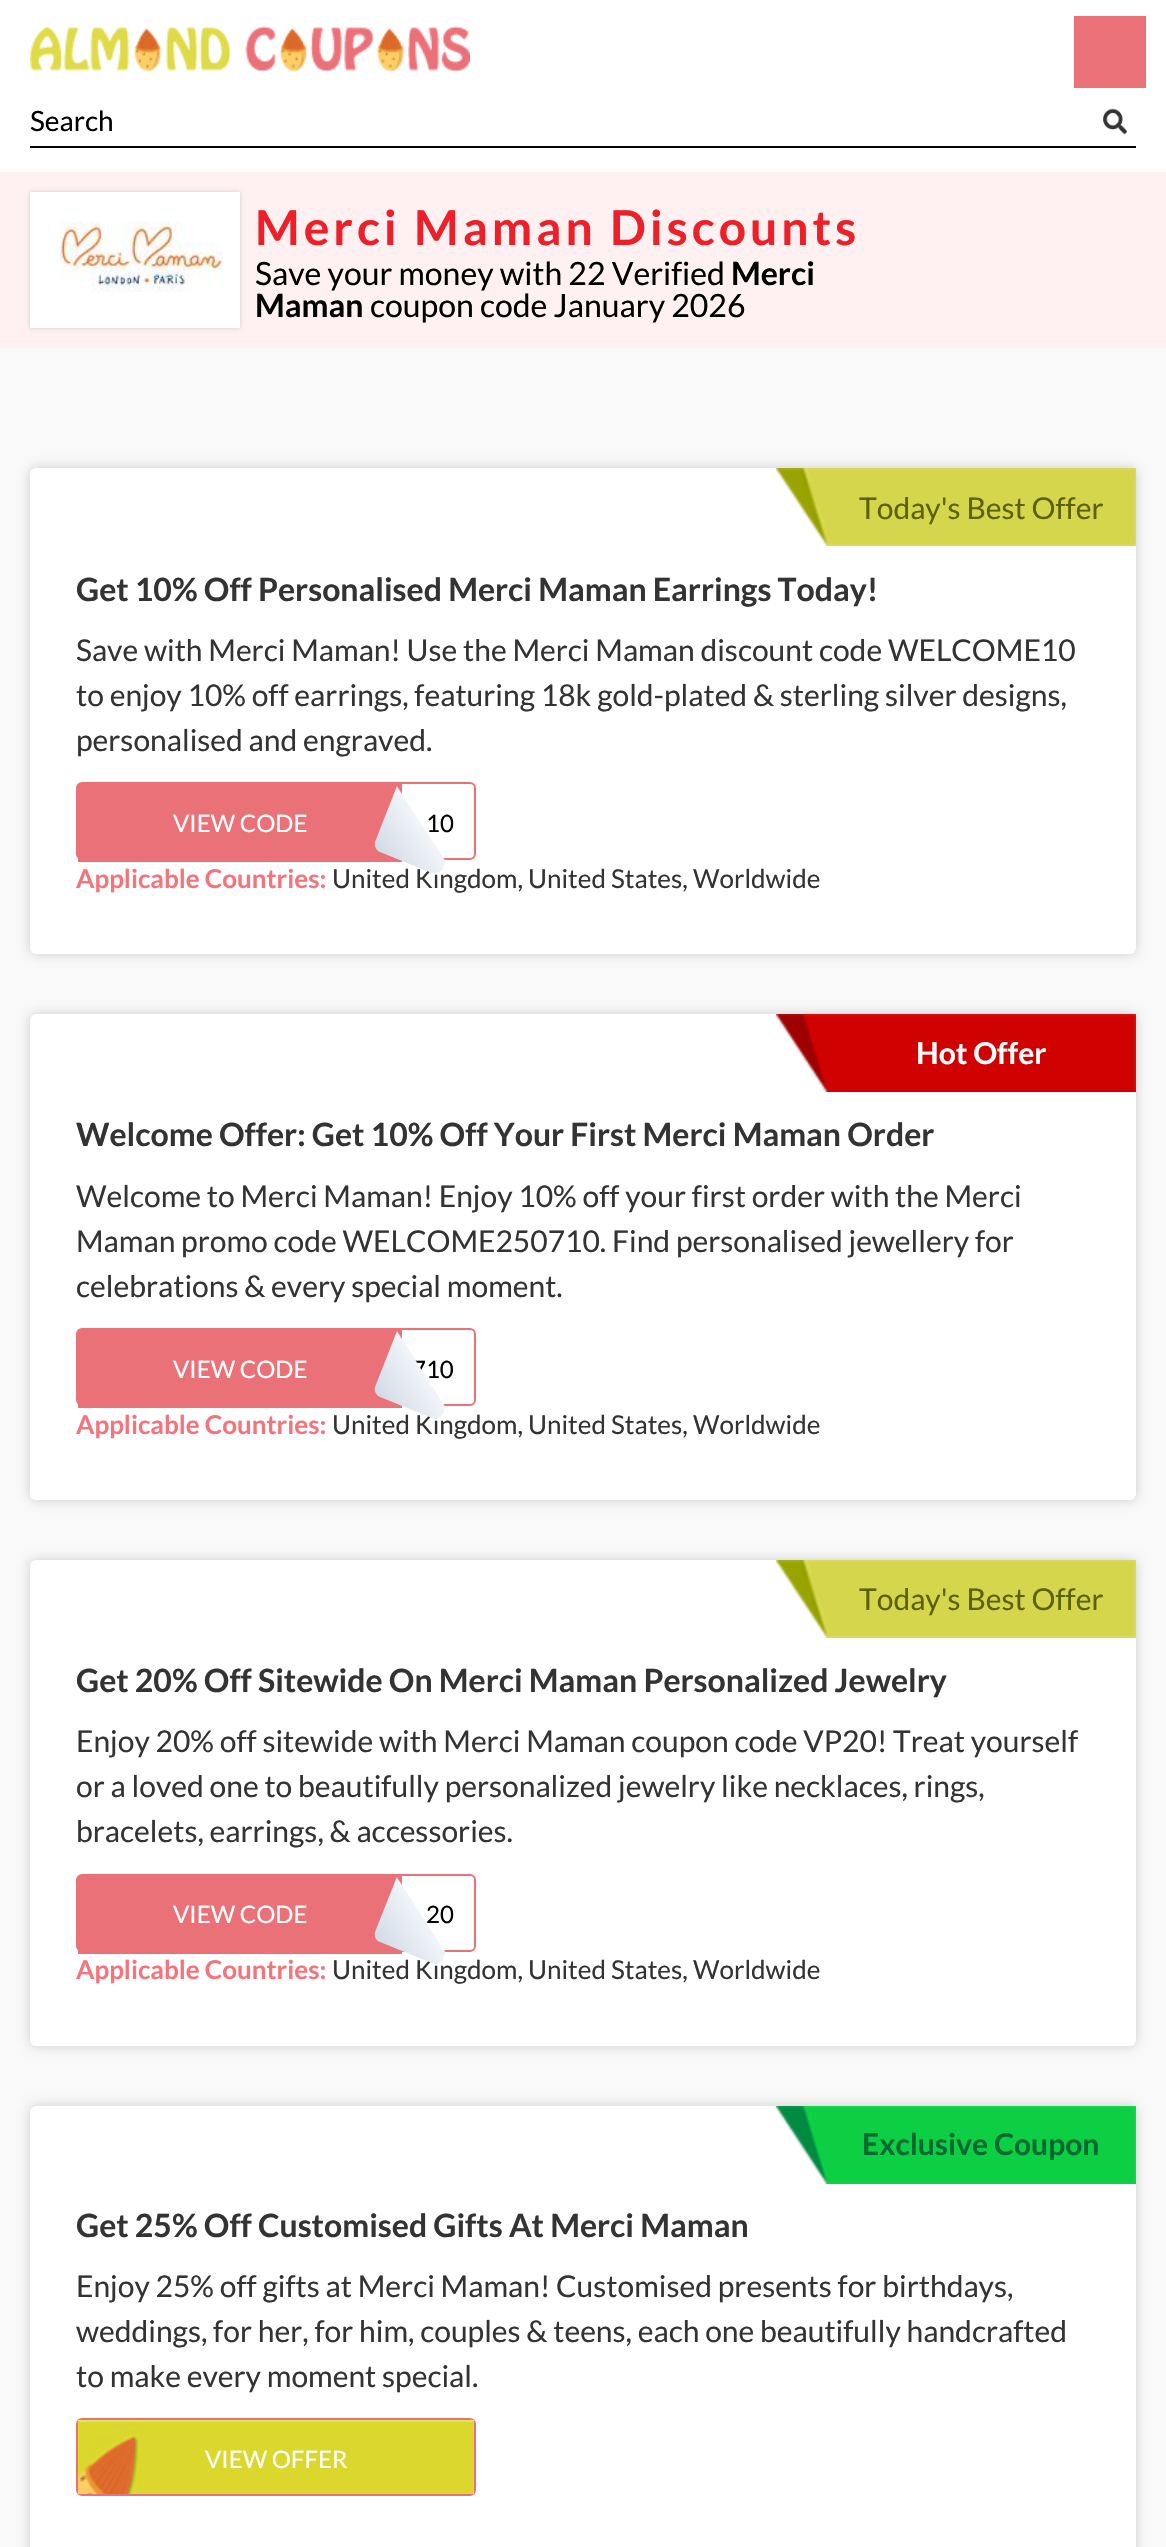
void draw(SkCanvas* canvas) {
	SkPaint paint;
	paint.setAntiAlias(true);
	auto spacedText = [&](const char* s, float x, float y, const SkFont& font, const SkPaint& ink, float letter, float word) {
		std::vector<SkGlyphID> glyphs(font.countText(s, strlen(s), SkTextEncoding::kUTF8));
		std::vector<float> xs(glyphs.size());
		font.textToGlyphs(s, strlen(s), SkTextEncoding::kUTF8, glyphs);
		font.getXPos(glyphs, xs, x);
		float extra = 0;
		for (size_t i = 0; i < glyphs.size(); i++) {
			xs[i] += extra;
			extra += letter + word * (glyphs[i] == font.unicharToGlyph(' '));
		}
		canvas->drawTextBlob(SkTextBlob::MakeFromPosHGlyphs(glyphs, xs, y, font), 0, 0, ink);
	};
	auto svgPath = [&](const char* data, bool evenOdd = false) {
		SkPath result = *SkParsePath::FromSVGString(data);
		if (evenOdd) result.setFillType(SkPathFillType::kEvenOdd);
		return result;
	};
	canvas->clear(0xffffffff);
	canvas->drawImageRect(SkImages::DeferredFromEncodedData(SkData::MakeFromFileName("img1.png")), SkRect::MakeXYWH(30, 26, 440, 46), SkSamplingOptions());
	paint.setColor(0xffeb7179);
	canvas->drawRect(SkRect::MakeXYWH(1074, 16, 72, 72), paint);
	paint.setColor(0xff000000);
	canvas->drawRect(SkRect::MakeXYWH(30, 146, 1106, 2), paint);
	SkFont f1(fontMgr->matchFamilyStyle("Lato", SkFontStyle::Normal()), 28);
	f1.setSubpixel(true);
	canvas->drawString("Search", 30, 131, f1, paint);
	canvas->drawImageRect(SkImages::DeferredFromEncodedData(SkData::MakeFromFileName("img2.png")), SkRect::MakeXYWH(1103, 108, 24, 27), SkSamplingOptions());
	paint.setColor(0xfffff1f1);
	canvas->drawRect(SkRect::MakeXYWH(0, 172, 1166, 176), paint);
	paint.setColor(0xffcccccc);
	paint.setMaskFilter(SkMaskFilter::MakeBlur(kNormal_SkBlurStyle, 2));
	canvas->drawRect(SkRect::MakeXYWH(30, 192, 210, 136), paint);
	paint.setMaskFilter(nullptr);
	paint.setColor(0xffffffff);
	canvas->drawRect(SkRect::MakeXYWH(30, 192, 210, 136), paint);
	canvas->drawImageRect(SkImages::DeferredFromEncodedData(SkData::MakeFromFileName("img3.png")), SkRect::MakeXYWH(60, 221, 164, 71), SkSamplingOptions());
	SkFont f2(fontMgr->matchFamilyStyle("Lato", SkFontStyle::Bold()), 48);
	f2.setSubpixel(true);
	paint.setColor(0xffed1f28);
	spacedText("Merci Maman Discounts", 255, 245, f2, paint, 4, 0);
	SkFont f3(fontMgr->matchFamilyStyle("Lato", SkFontStyle::Normal()), 32);
	f3.setSubpixel(true);
	paint.setColor(0xff000000);
	canvas->drawString("Save your money with 22 Verified", 255, 285, f3, paint);
	SkFont f4(fontMgr->matchFamilyStyle("Lato", SkFontStyle::Bold()), 32);
	f4.setSubpixel(true);
	canvas->drawString("Merci", 731, 285, f4, paint);
	canvas->drawString("Maman", 255, 317, f4, paint);
	canvas->drawString("coupon code January 2026", 370, 317, f3, paint);
	paint.setColor(0xfff9f9f9);
	canvas->drawRect(SkRect::MakeXYWH(0, 348, 1166, 2199), paint);
	paint.setColor(0xffcccccc);
	paint.setMaskFilter(SkMaskFilter::MakeBlur(kNormal_SkBlurStyle, 6));
	canvas->drawRoundRect(SkRect::MakeXYWH(30, 468, 1106, 486), 6, 6, paint);
	paint.setMaskFilter(nullptr);
	paint.setColor(0xffffffff);
	canvas->drawRoundRect(SkRect::MakeXYWH(30, 468, 1106, 486), 6, 6, paint);
	canvas->drawImageRect(SkImages::DeferredFromEncodedData(SkData::MakeFromFileName("img4.png")), SkRect::MakeXYWH(776, 468, 360, 78), SkSamplingOptions());
	SkFont f5(fontMgr->matchFamilyStyle("Lato", SkFontStyle::Normal()), 30);
	f5.setSubpixel(true);
	paint.setColor(0xff5a6100);
	canvas->drawString("Today's Best Offer", 859, 519, f5, paint);
	paint.setColor(0xff333333);
	canvas->drawString("Get 10% Off Personalised Merci Maman Earrings Today!", 76, 601, f4, paint);
	canvas->drawString("Save with Merci Maman! Use the Merci Maman discount code WELCOME10", 76, 661, f5, paint);
	canvas->drawString("to enjoy 10% off earrings, featuring 18k gold-plated & sterling silver designs,", 76, 706, f5, paint);
	canvas->drawString("personalised and engraved.", 76, 751, f5, paint);
	paint.setStroke(true);
	paint.setStrokeWidth(2);
	paint.setColor(0xffeb7179);
	canvas->drawRoundRect(SkRect::MakeXYWH(77, 783, 398, 76), 5, 5, paint);
	paint.setStroke(false);
	canvas->drawRect(SkRect::MakeXYWH(78, 784, 324, 78), paint);
	SkFont f6(fontMgr->matchFamilyStyle("Lato", SkFontStyle::Normal()), 24);
	f6.setSubpixel(true);
	paint.setColor(0xffffffff);
	canvas->drawString("VIEW CODE", 173, 832, f6, paint);
	paint.setColor(0xff000000);
	canvas->drawString("10", 426, 832, f6, paint);
	SkFont f7(fontMgr->matchFamilyStyle("Lato", SkFontStyle::Normal()), 26);
	f7.setSubpixel(true);
	paint.setColor(0xff333333);
	canvas->drawString("United Kingdom,", 332, 888, f7, paint);
	{
		const SkColor colors[] = {0xffcbd5e1, 0xfff1f5f9, 0x00f1f5f9, 0x00ffffff};
		const float stops[] = {0, 0.49, 0.5, 1};
		const SkPoint ends[] = {{369, 857}, {474, 789}};
		paint.setShader(SkGradientShader::MakeLinear(ends, colors, stops, 4, SkTileMode::kClamp));
		paint.setAlpha(255);
	}
	canvas->drawPath(svgPath("M406 763L474 791L443 868C441 872 436 874 432 873L380 852C376 850 374 846 375 842Z"), paint);
	SkFont f8(fontMgr->matchFamilyStyle("Lato", SkFontStyle::Bold()), 26);
	f8.setSubpixel(true);
	paint.setShader(nullptr);
	paint.setColor(0xfff5747c);
	canvas->drawString("Applicable Countries:", 76, 888, f8, paint);
	paint.setColor(0xff333333);
	canvas->drawString("United States,", 528, 888, f7, paint);
	canvas->drawString("Worldwide", 693, 888, f7, paint);
	paint.setColor(0xffcccccc);
	paint.setMaskFilter(SkMaskFilter::MakeBlur(kNormal_SkBlurStyle, 6));
	canvas->drawRoundRect(SkRect::MakeXYWH(30, 1014, 1106, 486), 6, 6, paint);
	paint.setMaskFilter(nullptr);
	paint.setColor(0xffffffff);
	canvas->drawRoundRect(SkRect::MakeXYWH(30, 1014, 1106, 486), 6, 6, paint);
	canvas->drawImageRect(SkImages::DeferredFromEncodedData(SkData::MakeFromFileName("img5.png")), SkRect::MakeXYWH(776, 1014, 360, 78), SkSamplingOptions());
	SkFont f9(fontMgr->matchFamilyStyle("Lato", SkFontStyle::Bold()), 30);
	f9.setSubpixel(true);
	canvas->drawString("Hot Offer", 916, 1064, f9, paint);
	paint.setColor(0xff333333);
	canvas->drawString("Welcome Offer: Get 10% Off Your First Merci Maman Order", 76, 1146, f4, paint);
	canvas->drawString("Welcome to Merci Maman! Enjoy 10% off your first order with the Merci", 76, 1207, f5, paint);
	canvas->drawString("Maman promo code WELCOME250710. Find personalised jewellery for", 76, 1252, f5, paint);
	canvas->drawString("celebrations & every special moment.", 76, 1297, f5, paint);
	paint.setStroke(true);
	paint.setColor(0xffeb7179);
	canvas->drawRoundRect(SkRect::MakeXYWH(77, 1329, 398, 76), 5, 5, paint);
	paint.setStroke(false);
	canvas->drawRect(SkRect::MakeXYWH(78, 1330, 324, 78), paint);
	paint.setColor(0xffffffff);
	canvas->drawString("VIEW CODE", 173, 1378, f6, paint);
	paint.setColor(0xff000000);
	canvas->drawString("710", 412, 1378, f6, paint);
	paint.setColor(0xff333333);
	canvas->drawString("United Kingdom,", 332, 1434, f7, paint);
	{
		const SkColor colors[] = {0xffcbd5e1, 0xfff1f5f9, 0x00f1f5f9, 0x00ffffff};
		const float stops[] = {0, 0.49, 0.5, 1};
		const SkPoint ends[] = {{369, 1402}, {474, 1335}};
		paint.setShader(SkGradientShader::MakeLinear(ends, colors, stops, 4, SkTileMode::kClamp));
		paint.setAlpha(255);
	}
	canvas->drawPath(svgPath("M397 1331L406 1308L474 1336L444 1412C442 1417 436 1420 432 1418L380 1397C376 1395 374 1391 375 1387Z"), paint);
	paint.setShader(nullptr);
	paint.setColor(0xfff5747c);
	canvas->drawString("Applicable Countries:", 76, 1434, f8, paint);
	paint.setColor(0xff333333);
	canvas->drawString("United States,", 528, 1434, f7, paint);
	canvas->drawString("Worldwide", 693, 1434, f7, paint);
	paint.setColor(0xffcccccc);
	paint.setMaskFilter(SkMaskFilter::MakeBlur(kNormal_SkBlurStyle, 6));
	canvas->drawRoundRect(SkRect::MakeXYWH(30, 1560, 1106, 486), 6, 6, paint);
	paint.setMaskFilter(nullptr);
	paint.setColor(0xffffffff);
	canvas->drawRoundRect(SkRect::MakeXYWH(30, 1560, 1106, 486), 6, 6, paint);
	canvas->drawImageRect(SkImages::DeferredFromEncodedData(SkData::MakeFromFileName("img4.png")), SkRect::MakeXYWH(776, 1560, 360, 78), SkSamplingOptions());
	paint.setColor(0xff5a6100);
	canvas->drawString("Today's Best Offer", 859, 1610, f5, paint);
	paint.setColor(0xff333333);
	canvas->drawString("Get 20% Off Sitewide On Merci Maman Personalized Jewelry", 76, 1692, f4, paint);
	canvas->drawString("Enjoy 20% off sitewide with Merci Maman coupon code VP20! Treat yourself", 76, 1752, f5, paint);
	canvas->drawString("or a loved one to beautifully personalized jewelry like necklaces, rings,", 76, 1797, f5, paint);
	canvas->drawString("bracelets, earrings, & accessories.", 76, 1842, f5, paint);
	paint.setStroke(true);
	paint.setColor(0xffeb7179);
	canvas->drawRoundRect(SkRect::MakeXYWH(77, 1875, 398, 76), 5, 5, paint);
	paint.setStroke(false);
	canvas->drawRect(SkRect::MakeXYWH(78, 1876, 324, 78), paint);
	paint.setColor(0xffffffff);
	canvas->drawString("VIEW CODE", 173, 1923, f6, paint);
	paint.setColor(0xff000000);
	canvas->drawString("20", 426, 1923, f6, paint);
	paint.setColor(0xff333333);
	canvas->drawString("United Kingdom,", 332, 1979, f7, paint);
	{
		const SkColor colors[] = {0xffcbd5e1, 0xfff1f5f9, 0x00f1f5f9, 0x00ffffff};
		const float stops[] = {0, 0.49, 0.5, 1};
		const SkPoint ends[] = {{369, 1948}, {474, 1880}};
		paint.setShader(SkGradientShader::MakeLinear(ends, colors, stops, 4, SkTileMode::kClamp));
		paint.setAlpha(255);
	}
	canvas->drawPath(svgPath("M406 1854L474 1881L443 1959C441 1963 436 1965 432 1963L380 1942C376 1941 374 1936 375 1932Z"), paint);
	paint.setShader(nullptr);
	paint.setColor(0xfff5747c);
	canvas->drawString("Applicable Countries:", 76, 1979, f8, paint);
	paint.setColor(0xff333333);
	canvas->drawString("United States,", 528, 1979, f7, paint);
	canvas->drawString("Worldwide", 693, 1979, f7, paint);
	paint.setColor(0xffcccccc);
	paint.setMaskFilter(SkMaskFilter::MakeBlur(kNormal_SkBlurStyle, 6));
	canvas->drawRoundRect(SkRect::MakeXYWH(30, 2106, 1106, 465), 6, 6, paint);
	paint.setMaskFilter(nullptr);
	paint.setColor(0xffffffff);
	canvas->drawRoundRect(SkRect::MakeXYWH(30, 2106, 1106, 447), 6, 6, paint);
	canvas->drawImageRect(SkImages::DeferredFromEncodedData(SkData::MakeFromFileName("img6.png")), SkRect::MakeXYWH(776, 2106, 360, 78), SkSamplingOptions());
	paint.setColor(0xff006831);
	canvas->drawString("Exclusive Coupon", 862, 2155, f9, paint);
	paint.setColor(0xff333333);
	canvas->drawString("Get 25% Off Customised Gifts At Merci Maman", 76, 2237, f4, paint);
	canvas->drawString("Enjoy 25% off gifts at Merci Maman! Customised presents for birthdays,", 76, 2297, f5, paint);
	canvas->drawString("weddings, for her, for him, couples & teens, each one beautifully handcrafted", 76, 2342, f5, paint);
	canvas->drawString("to make every moment special.", 76, 2387, f5, paint);
	paint.setStroke(true);
	paint.setColor(0xffeb7179);
	canvas->drawRoundRect(SkRect::MakeXYWH(77, 2419, 398, 76), 5, 5, paint);
	canvas->drawImageRect(SkImages::DeferredFromEncodedData(SkData::MakeFromFileName("img7.png")), SkRect::MakeXYWH(78, 2420, 396, 74), SkSamplingOptions());
	paint.setStroke(false);
	paint.setColor(0xffffffff);
	canvas->drawString("VIEW OFFER", 205, 2468, f6, paint);
}
